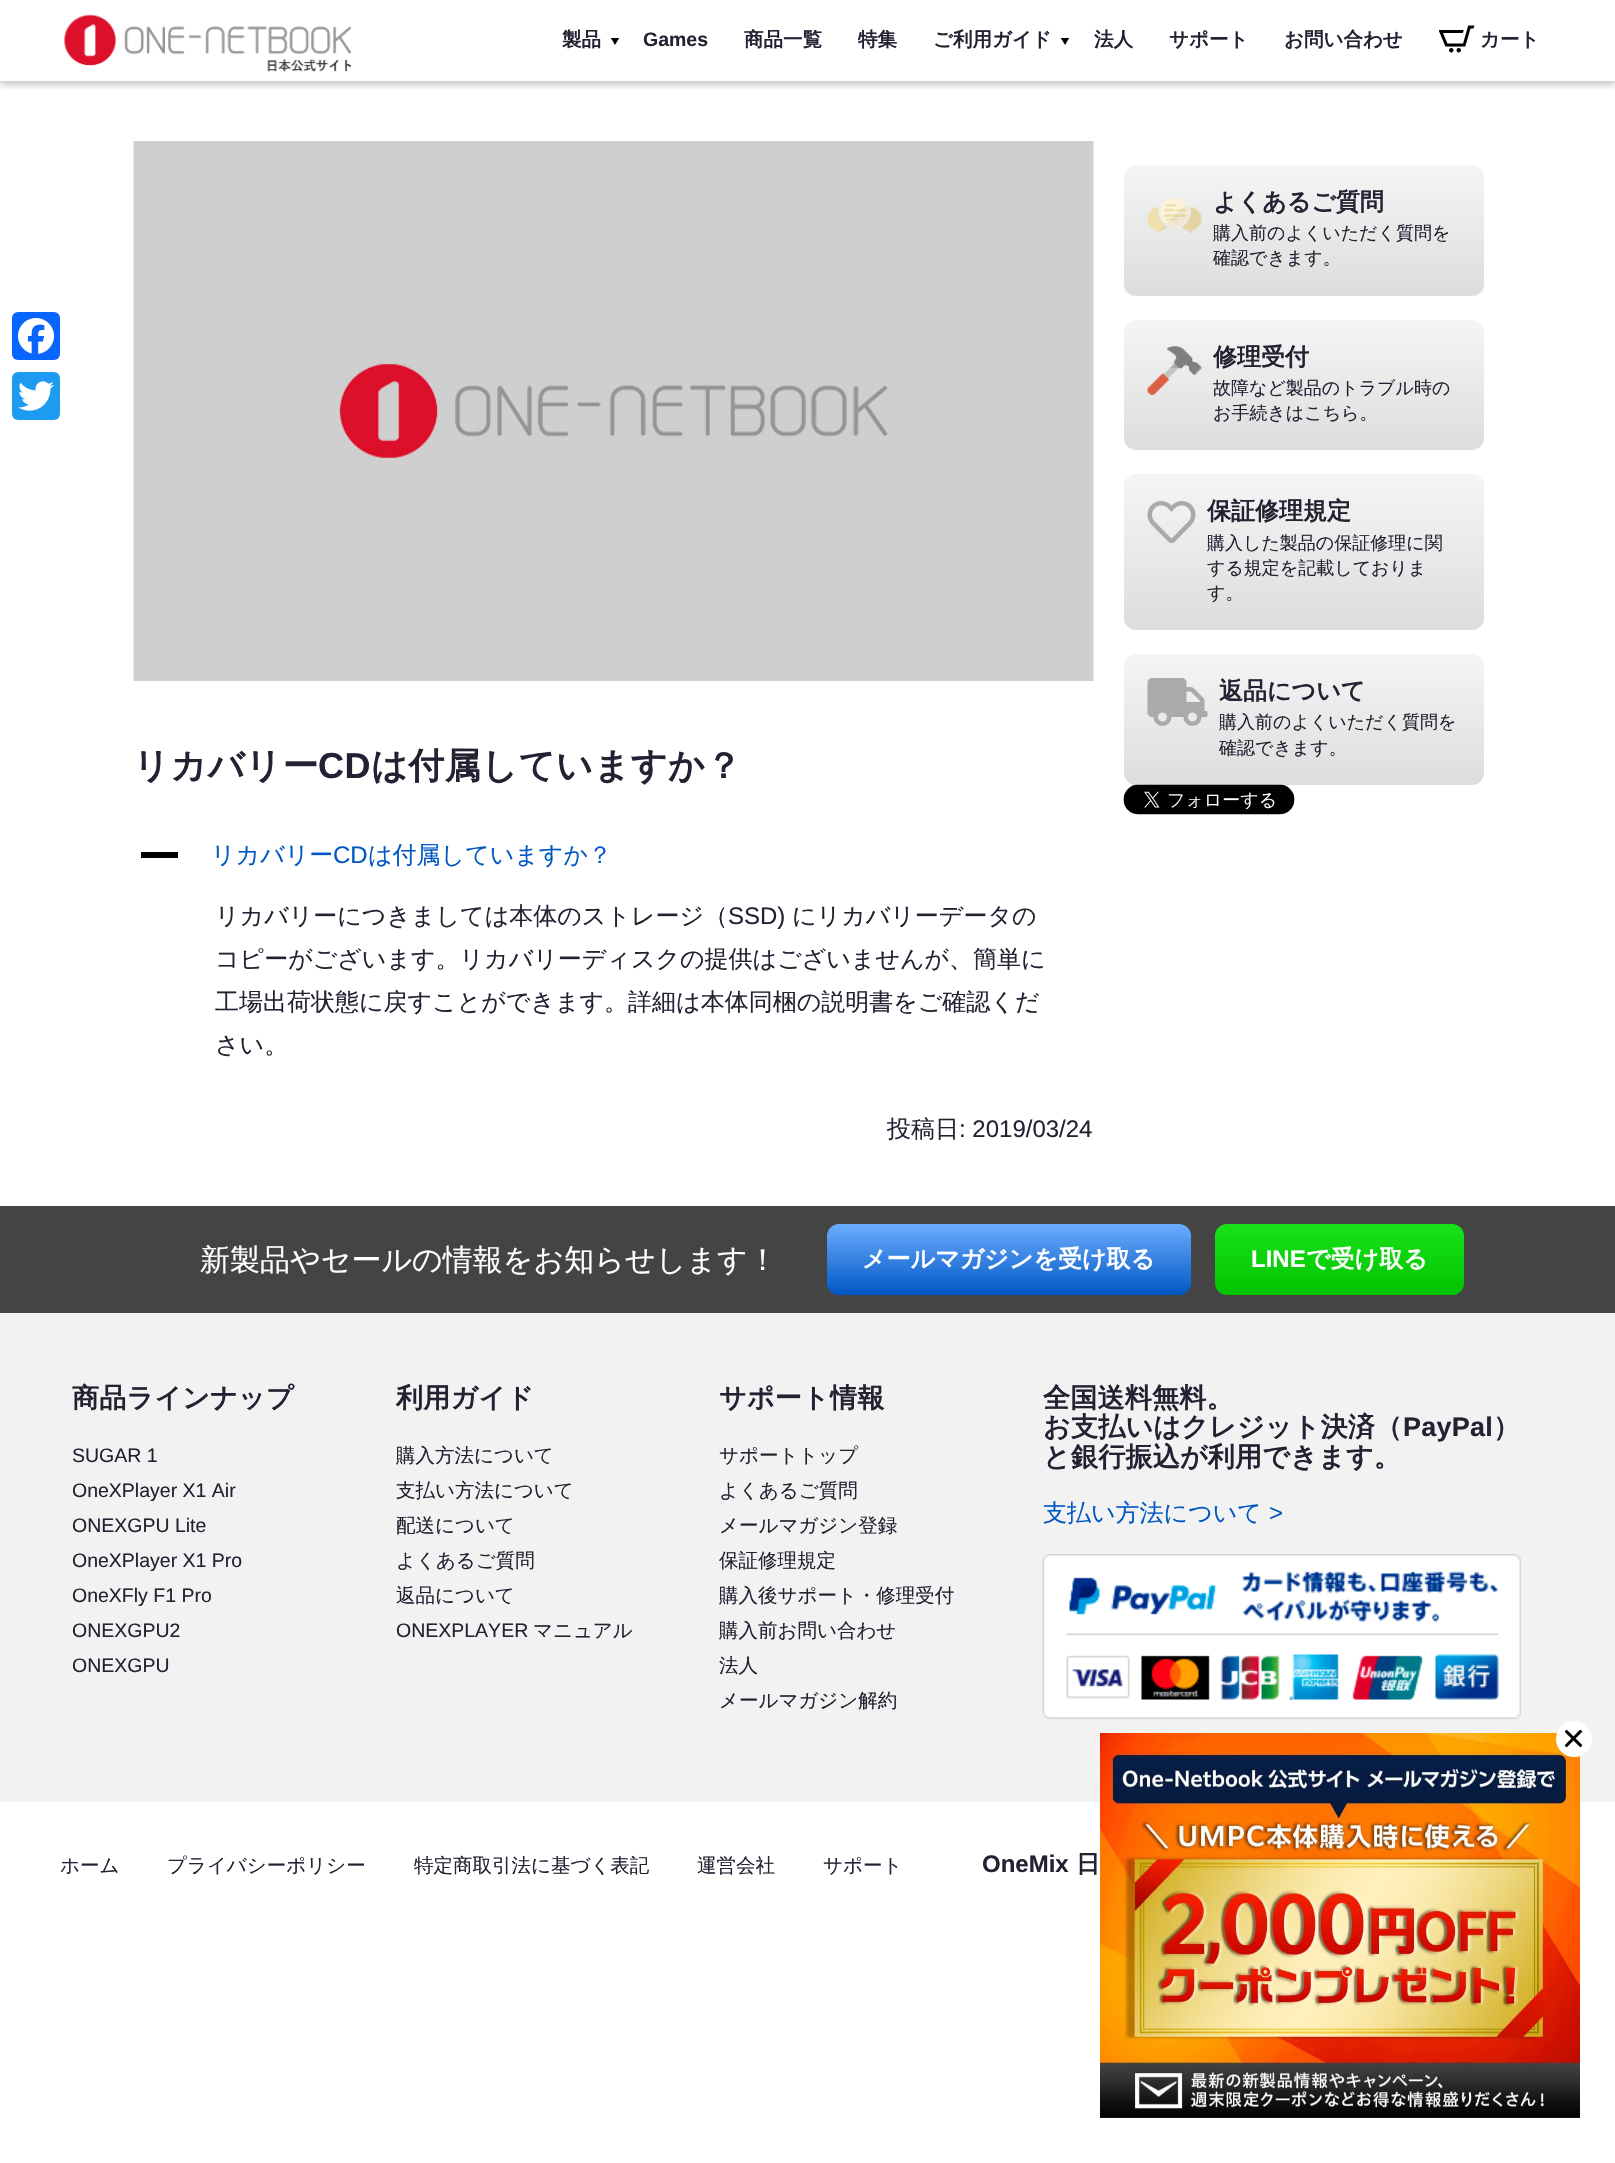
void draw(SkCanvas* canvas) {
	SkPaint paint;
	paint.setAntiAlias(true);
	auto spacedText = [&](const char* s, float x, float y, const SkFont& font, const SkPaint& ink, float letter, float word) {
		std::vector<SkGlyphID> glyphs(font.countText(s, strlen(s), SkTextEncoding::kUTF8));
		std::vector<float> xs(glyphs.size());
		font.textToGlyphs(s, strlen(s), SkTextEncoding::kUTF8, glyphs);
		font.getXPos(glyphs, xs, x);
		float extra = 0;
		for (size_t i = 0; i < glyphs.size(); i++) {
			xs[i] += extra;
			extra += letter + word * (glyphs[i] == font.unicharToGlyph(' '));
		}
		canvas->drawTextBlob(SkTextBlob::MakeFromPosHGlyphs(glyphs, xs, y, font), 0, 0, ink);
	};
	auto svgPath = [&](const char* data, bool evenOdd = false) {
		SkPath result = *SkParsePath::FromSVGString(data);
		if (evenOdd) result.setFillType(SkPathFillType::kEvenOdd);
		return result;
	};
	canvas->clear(0xffffffff);
	canvas->save();
	canvas->clipRect(SkRect::MakeXYWH(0, 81, 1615, 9));
	paint.setColor(0x42000000);
	paint.setMaskFilter(SkMaskFilter::MakeBlur(kNormal_SkBlurStyle, 4));
	canvas->drawRect(SkRect::MakeXYWH(0, 3, 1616, 81), paint);
	paint.setMaskFilter(nullptr);
	canvas->restore();
	canvas->drawImageRect(SkImages::DeferredFromEncodedData(SkData::MakeFromFileName("img1.png")), SkRect::MakeXYWH(64, 14, 288, 58), SkSamplingOptions());
	canvas->save();
	canvas->clipRect(SkRect::MakeXYWH(611, 38, 9, 7));
	paint.setColor(0xff000000);
	canvas->drawPath(svgPath("M615 45L610.5 37.5H619.5Z"), paint);
	canvas->restore();
	SkFont f1(fontMgr->matchFamilyStyle("WenQuanYi Zen Hei", SkFontStyle::Bold()), 19.5);
	f1.setSubpixel(true);
	paint.setColor(0xff232132);
	canvas->drawString("製品", 562, 46, f1, paint);
	SkFont f2(fontMgr->matchFamilyStyle("Liberation Sans", SkFontStyle::Bold()), 19.5);
	f2.setSubpixel(true);
	canvas->drawString("Games", 643, 46, f2, paint);
	canvas->drawString("商品一覧", 744, 46, f1, paint);
	canvas->drawString("特集", 858, 46, f1, paint);
	canvas->save();
	canvas->clipRect(SkRect::MakeXYWH(1061, 38, 9, 7));
	paint.setColor(0xff000000);
	canvas->drawPath(svgPath("M1065 45L1060.5 37.5H1069.5Z"), paint);
	canvas->restore();
	paint.setColor(0xff232132);
	canvas->drawString("ご利用ガイド", 933, 46, f1, paint);
	canvas->drawString("法人", 1094, 46, f1, paint);
	canvas->drawString("サポート", 1169, 46, f1, paint);
	canvas->drawString("お問い合わせ", 1284, 46, f1, paint);
	canvas->drawImageRect(SkImages::DeferredFromEncodedData(SkData::MakeFromFileName("img2.png")), SkRect::MakeXYWH(1439, 25, 36, 28), SkSamplingOptions());
	canvas->drawString("カート", 1480, 46, f1, paint);
	paint.setColor(0xff0866ff);
	canvas->drawRoundRect(SkRect::MakeXYWH(12, 312, 48, 48), 6, 6, paint);
	canvas->drawImageRect(SkImages::DeferredFromEncodedData(SkData::MakeFromFileName("img3.png")), SkRect::MakeXYWH(18, 318, 36, 36), SkSamplingOptions());
	paint.setColor(0xff1d9bf0);
	canvas->drawRoundRect(SkRect::MakeXYWH(12, 372, 48, 48), 6, 6, paint);
	canvas->drawImageRect(SkImages::DeferredFromEncodedData(SkData::MakeFromFileName("img4.png")), SkRect::MakeXYWH(18, 381, 36, 30), SkSamplingOptions());
	{
		const SkColor colors[] = {0xfff4f5f5, 0xffdddddd};
		const float stops[] = {0, 1};
		const SkPoint ends[] = {{1304, 165}, {1304, 296}};
		paint.setShader(SkGradientShader::MakeLinear(ends, colors, stops, 2, SkTileMode::kClamp));
		paint.setAlpha(255);
	}
	canvas->drawRoundRect(SkRect::MakeXYWH(1124, 165, 360, 131), 12, 12, paint);
	canvas->drawImageRect(SkImages::DeferredFromEncodedData(SkData::MakeFromFileName("img5.png")), SkRect::MakeXYWH(1147, 198, 55, 36), SkSamplingOptions());
	SkFont f3(fontMgr->matchFamilyStyle("WenQuanYi Zen Hei", SkFontStyle::Bold()), 24);
	f3.setSubpixel(true);
	paint.setShader(nullptr);
	paint.setColor(0xff232132);
	canvas->drawString("よくあるご質問", 1213, 210, f3, paint);
	SkFont f4(fontMgr->matchFamilyStyle("WenQuanYi Zen Hei", SkFontStyle(500, SkFontStyle::kNormal_Width, SkFontStyle::kUpright_Slant)), 18);
	f4.setSubpixel(true);
	canvas->drawString("購入前のよくいただく質問を", 1213, 239, f4, paint);
	canvas->drawString("確認できます。", 1213, 264, f4, paint);
	{
		const SkColor colors[] = {0xfff4f5f5, 0xffdddddd};
		const float stops[] = {0, 1};
		const SkPoint ends[] = {{1304, 320}, {1304, 450}};
		paint.setShader(SkGradientShader::MakeLinear(ends, colors, stops, 2, SkTileMode::kClamp));
		paint.setAlpha(255);
	}
	canvas->drawRoundRect(SkRect::MakeXYWH(1124, 320, 360, 130), 12, 12, paint);
	canvas->drawImageRect(SkImages::DeferredFromEncodedData(SkData::MakeFromFileName("img6.png")), SkRect::MakeXYWH(1147, 346, 55, 49), SkSamplingOptions());
	paint.setShader(nullptr);
	paint.setColor(0xff232132);
	canvas->drawString("修理受付", 1213, 365, f3, paint);
	canvas->drawString("故障など製品のトラブル時の", 1213, 394, f4, paint);
	canvas->drawString("お手続きはこちら。", 1213, 419, f4, paint);
	{
		const SkColor colors[] = {0xfff4f5f5, 0xffdddddd};
		const float stops[] = {0, 1};
		const SkPoint ends[] = {{1304, 474}, {1304, 630}};
		paint.setShader(SkGradientShader::MakeLinear(ends, colors, stops, 2, SkTileMode::kClamp));
		paint.setAlpha(255);
	}
	canvas->drawRoundRect(SkRect::MakeXYWH(1124, 474, 360, 156), 12, 12, paint);
	canvas->drawImageRect(SkImages::DeferredFromEncodedData(SkData::MakeFromFileName("img7.png")), SkRect::MakeXYWH(1147, 501, 49, 42), SkSamplingOptions());
	paint.setShader(nullptr);
	paint.setColor(0xff232132);
	canvas->drawString("保証修理規定", 1207, 519, f3, paint);
	canvas->drawString("購入した製品の保証修理に関", 1207, 549, f4, paint);
	canvas->drawString("する規定を記載しておりま", 1207, 574, f4, paint);
	canvas->drawString("す。", 1207, 599, f4, paint);
	{
		const SkColor colors[] = {0xfff4f5f5, 0xffdddddd};
		const float stops[] = {0, 1};
		const SkPoint ends[] = {{1304, 654}, {1304, 785}};
		paint.setShader(SkGradientShader::MakeLinear(ends, colors, stops, 2, SkTileMode::kClamp));
		paint.setAlpha(255);
	}
	canvas->drawRoundRect(SkRect::MakeXYWH(1124, 654, 360, 131), 12, 12, paint);
	canvas->drawImageRect(SkImages::DeferredFromEncodedData(SkData::MakeFromFileName("img8.png")), SkRect::MakeXYWH(1147, 678, 61, 48), SkSamplingOptions());
	paint.setShader(nullptr);
	paint.setColor(0xff232132);
	canvas->drawString("返品について", 1219, 699, f3, paint);
	canvas->drawString("購入前のよくいただく質問を", 1219, 728, f4, paint);
	canvas->drawString("確認できます。", 1219, 754, f4, paint);
	canvas->drawImageRect(SkImages::DeferredFromEncodedData(SkData::MakeFromFileName("img9.png")), SkRect::MakeXYWH(1123, 784, 172, 31), SkSamplingOptions());
	canvas->drawImageRect(SkImages::DeferredFromEncodedData(SkData::MakeFromFileName("img10.png")), SkRect::MakeXYWH(133, 141, 961, 540), SkSamplingOptions());
	SkFont f5(fontMgr->matchFamilyStyle("WenQuanYi Zen Hei", SkFontStyle::Bold()), 36);
	f5.setSubpixel(true);
	spacedText("リカバリー", 133, 778, f5, paint, 0.5, 0);
	SkFont f6(fontMgr->matchFamilyStyle("Liberation Sans", SkFontStyle::Bold()), 36);
	f6.setSubpixel(true);
	spacedText("CD", 318, 778, f6, paint, 0.5, 0);
	spacedText("は付属していますか？", 371, 778, f5, paint, 0.5, 0);
	paint.setColor(0xff000000);
	canvas->drawRect(SkRect::MakeXYWH(141, 852, 37, 6), paint);
	SkFont f7(fontMgr->matchFamilyStyle("WenQuanYi Zen Hei", SkFontStyle(500, SkFontStyle::kNormal_Width, SkFontStyle::kUpright_Slant)), 24);
	f7.setSubpixel(true);
	paint.setColor(0xff0157c4);
	canvas->drawString("リカバリー", 211, 863, f7, paint);
	SkFont f8(fontMgr->matchFamilyStyle("Liberation Sans", SkFontStyle::Normal()), 24);
	f8.setSubpixel(true);
	canvas->drawString("CD", 333, 863, f8, paint);
	canvas->drawString("は付属していますか？", 368, 863, f7, paint);
	paint.setColor(0xff232132);
	canvas->drawString("リカバリーにつきましては本体のストレージ（", 215, 924, f7, paint);
	canvas->drawString("SSD)", 728, 924, f8, paint);
	canvas->drawString("にリカバリーデータの", 792, 924, f7, paint);
	canvas->drawString("コピーがございます。リカバリーディスクの提供はございませんが、簡単に", 215, 967, f7, paint);
	canvas->drawString("工場出荷状態に戻すことができます。詳細は本体同梱の説明書をご確認くだ", 215, 1010, f7, paint);
	canvas->drawString("さい。", 215, 1053, f7, paint);
	canvas->drawString("投稿日", 887, 1137, f7, paint);
	canvas->drawString(": 2019/03/24", 959, 1137, f8, paint);
	paint.setColor(0xff444444);
	canvas->drawRect(SkRect::MakeXYWH(0, 1206, 1615, 107), paint);
	SkFont f9(fontMgr->matchFamilyStyle("WenQuanYi Zen Hei", SkFontStyle(500, SkFontStyle::kNormal_Width, SkFontStyle::kUpright_Slant)), 30);
	f9.setSubpixel(true);
	paint.setColor(0xffffffff);
	canvas->drawString("新製品やセールの情報をお知らせします！", 200, 1270, f9, paint);
	{
		const SkColor colors[] = {0xff6cadff, 0xff0057c4};
		const float stops[] = {0, 1};
		const SkPoint ends[] = {{1009, 1224}, {1009, 1295}};
		paint.setShader(SkGradientShader::MakeLinear(ends, colors, stops, 2, SkTileMode::kClamp));
		paint.setAlpha(255);
	}
	canvas->drawRoundRect(SkRect::MakeXYWH(827, 1224, 364, 71), 12, 12, paint);
	paint.setShader(nullptr);
	paint.setColor(0xffffffff);
	canvas->drawString("メールマガジンを受け取る", 862, 1267, f3, paint);
	{
		const SkColor colors[] = {0xff1ae21a, 0xff00c300};
		const float stops[] = {0, 1};
		const SkPoint ends[] = {{1340, 1224}, {1340, 1295}};
		paint.setShader(SkGradientShader::MakeLinear(ends, colors, stops, 2, SkTileMode::kClamp));
		paint.setAlpha(255);
	}
	canvas->drawRoundRect(SkRect::MakeXYWH(1215, 1224, 249, 71), 12, 12, paint);
	SkFont f10(fontMgr->matchFamilyStyle("Liberation Sans", SkFontStyle::Bold()), 24);
	f10.setSubpixel(true);
	paint.setShader(nullptr);
	paint.setColor(0xffffffff);
	canvas->drawString("LINE", 1251, 1267, f10, paint);
	canvas->drawString("で受け取る", 1306, 1267, f3, paint);
	paint.setColor(0xfff2f2f2);
	canvas->drawRect(SkRect::MakeXYWH(0, 1313, 1615, 489), paint);
	SkFont f11(fontMgr->matchFamilyStyle("WenQuanYi Zen Hei", SkFontStyle::Bold()), 27);
	f11.setSubpixel(true);
	paint.setColor(0xff232132);
	spacedText("商品ラインナップ", 72, 1407, f11, paint, 0.25, 0);
	SkFont f12(fontMgr->matchFamilyStyle("Liberation Sans", SkFontStyle::Normal()), 19.5);
	f12.setSubpixel(true);
	canvas->drawString("SUGAR 1", 72, 1462, f12, paint);
	canvas->drawString("OneXPlayer X1 Air", 72, 1497, f12, paint);
	canvas->drawString("ONEXGPU Lite", 72, 1532, f12, paint);
	canvas->drawString("OneXPlayer X1 Pro", 72, 1567, f12, paint);
	canvas->drawString("OneXFly F1 Pro", 72, 1602, f12, paint);
	canvas->drawString("ONEXGPU2", 72, 1637, f12, paint);
	canvas->drawString("ONEXGPU", 72, 1672, f12, paint);
	spacedText("利用ガイド", 396, 1407, f11, paint, 0.25, 0);
	SkFont f13(fontMgr->matchFamilyStyle("WenQuanYi Zen Hei", SkFontStyle(500, SkFontStyle::kNormal_Width, SkFontStyle::kUpright_Slant)), 19.5);
	f13.setSubpixel(true);
	canvas->drawString("購入方法について", 396, 1462, f13, paint);
	canvas->drawString("支払い方法について", 396, 1497, f13, paint);
	canvas->drawString("配送について", 396, 1532, f13, paint);
	canvas->drawString("よくあるご質問", 396, 1567, f13, paint);
	canvas->drawString("返品について", 396, 1602, f13, paint);
	canvas->drawString("ONEXPLAYER", 396, 1637, f12, paint);
	canvas->drawString("マニュアル", 533, 1637, f13, paint);
	spacedText("サポート情報", 719, 1407, f11, paint, 0.25, 0);
	canvas->drawString("サポートトップ", 719, 1462, f13, paint);
	canvas->drawString("よくあるご質問", 719, 1497, f13, paint);
	canvas->drawString("メールマガジン登録", 719, 1532, f13, paint);
	canvas->drawString("保証修理規定", 719, 1567, f13, paint);
	canvas->drawString("購入後サポート・修理受付", 719, 1602, f13, paint);
	canvas->drawString("購入前お問い合わせ", 719, 1637, f13, paint);
	canvas->drawString("法人", 719, 1672, f13, paint);
	canvas->drawString("メールマガジン解約", 719, 1707, f13, paint);
	spacedText("全国送料無料。", 1043, 1407, f11, paint, 0.25, 0);
	spacedText("お支払いはクレジット決済（", 1043, 1436, f11, paint, 0.25, 0);
	SkFont f14(fontMgr->matchFamilyStyle("Liberation Sans", SkFontStyle::Bold()), 27);
	f14.setSubpixel(true);
	spacedText("PayPal", 1403, 1436, f14, paint, 0.25, 0);
	spacedText("）", 1493, 1436, f11, paint, 0.25, 0);
	spacedText("と銀行振込が利用できます。", 1043, 1466, f11, paint, 0.25, 0);
	paint.setColor(0xff0157c4);
	canvas->drawString("支払い方法について", 1043, 1521, f7, paint);
	canvas->drawString(">", 1269, 1521, f8, paint);
	canvas->drawImageRect(SkImages::DeferredFromEncodedData(SkData::MakeFromFileName("img11.png")), SkRect::MakeXYWH(1042, 1554, 479, 165), SkSamplingOptions());
	paint.setColor(0xff232132);
	canvas->drawString("ホーム", 60, 1872, f13, paint);
	canvas->drawString("プライバシーポリシー", 167, 1872, f13, paint);
	canvas->drawString("特定商取引法に基づく表記", 414, 1872, f13, paint);
	canvas->drawString("運営会社", 697, 1872, f13, paint);
	canvas->drawString("サポート", 823, 1872, f13, paint);
	canvas->drawString("OneMix", 982, 1872, f10, paint);
	canvas->drawString("日", 1076, 1872, f3, paint);
	canvas->drawImageRect(SkImages::DeferredFromEncodedData(SkData::MakeFromFileName("img13.png")), SkRect::MakeXYWH(1100, 1733, 480, 385), SkSamplingOptions());
	paint.setColor(0xffffffff);
	canvas->drawCircle(1574, 1739, 18, paint);
	canvas->drawImageRect(SkImages::DeferredFromEncodedData(SkData::MakeFromFileName("img12.png")), SkRect::MakeXYWH(1565, 1730, 18, 18), SkSamplingOptions());
}
